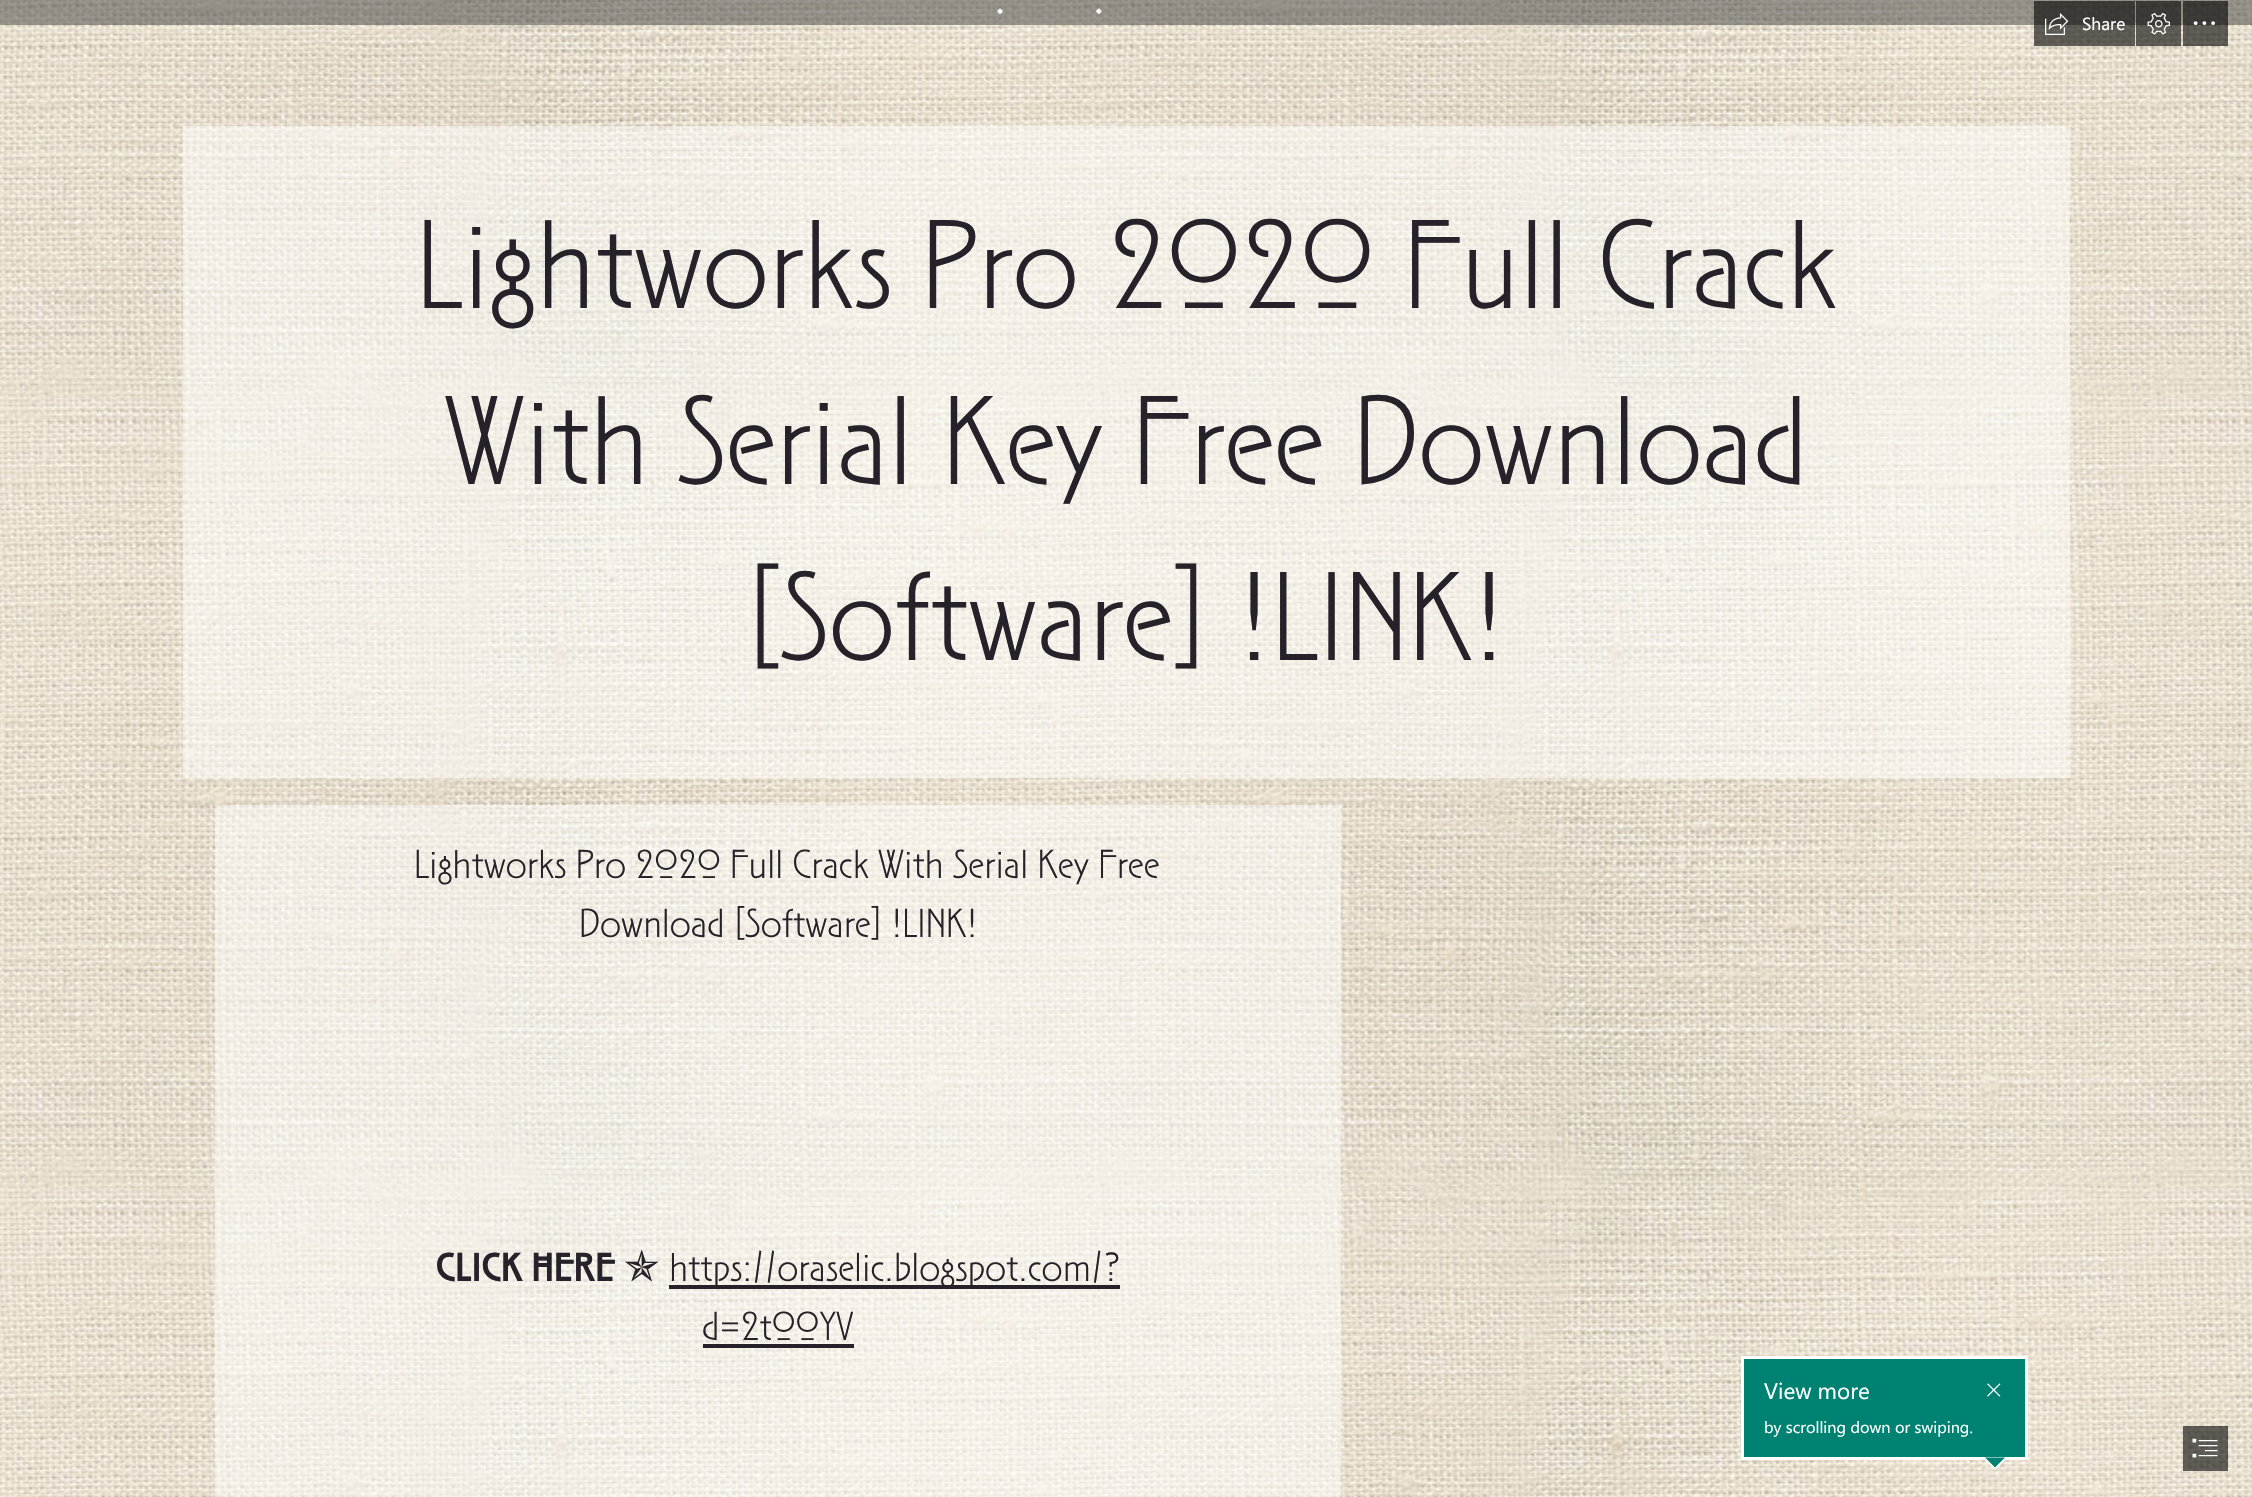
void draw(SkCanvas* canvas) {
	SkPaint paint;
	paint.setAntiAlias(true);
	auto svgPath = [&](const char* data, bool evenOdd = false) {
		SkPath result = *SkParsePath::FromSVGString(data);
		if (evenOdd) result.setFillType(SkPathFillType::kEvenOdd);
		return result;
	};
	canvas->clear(0xffffffff);
	canvas->drawImageRect(SkImages::DeferredFromEncodedData(SkData::MakeFromFileName("img5.png")), SkRect::MakeXYWH(0, 0, 2252, 1497), SkSamplingOptions());
	paint.setColor(0x80404040);
	canvas->drawRect(SkRect::MakeXYWH(0, 0, 2252, 25), paint);
	paint.setColor(0x99000000);
	canvas->drawRect(SkRect::MakeXYWH(2034, 1, 101, 45), paint);
	canvas->drawImageRect(SkImages::DeferredFromEncodedData(SkData::MakeFromFileName("img1.png")), SkRect::MakeXYWH(2045, 13, 24, 22), SkSamplingOptions());
	SkFont f1(fontMgr->matchFamilyStyle("Segoe UI", SkFontStyle::Normal()), 17.5);
	f1.setSubpixel(true);
	paint.setColor(0xffffffff);
	canvas->drawString("Share", 2082, 30, f1, paint);
	paint.setColor(0x99000000);
	canvas->drawRect(SkRect::MakeXYWH(2136, 1, 45, 45), paint);
	canvas->drawImageRect(SkImages::DeferredFromEncodedData(SkData::MakeFromFileName("img2.png")), SkRect::MakeXYWH(2147, 12, 23, 23), SkSamplingOptions());
	canvas->drawRect(SkRect::MakeXYWH(2183, 1, 45, 45), paint);
	canvas->drawImageRect(SkImages::DeferredFromEncodedData(SkData::MakeFromFileName("img3.png")), SkRect::MakeXYWH(2193, 21, 22, 4), SkSamplingOptions());
	canvas->drawImageRect(SkImages::DeferredFromEncodedData(SkData::MakeFromFileName("img4.png")), SkRect::MakeXYWH(997, 8, 105, 6), SkSamplingOptions());
	paint.setColor(0x80ffffff);
	canvas->drawRect(SkRect::MakeXYWH(183, 126, 1887, 652), paint);
	SkFont f2(fontMgr->matchFamilyStyle("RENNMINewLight", SkFontStyle(300, SkFontStyle::kNormal_Width, SkFontStyle::kUpright_Slant)), 132);
	f2.setSubpixel(true);
	paint.setColor(0xff272229);
	canvas->drawString("Lightworks Pro 2020 Full Crack", 416, 308, f2, paint);
	canvas->drawString("With Serial Key Free Download", 444, 484, f2, paint);
	canvas->drawString("[Software] !LINK!", 746, 660, f2, paint);
	paint.setColor(0x80ffffff);
	canvas->drawRect(SkRect::MakeXYWH(215, 805, 1126, 692), paint);
	SkFont f3(fontMgr->matchFamilyStyle("RENNMINewLight", SkFontStyle(300, SkFontStyle::kNormal_Width, SkFontStyle::kUpright_Slant)), 42.25);
	f3.setSubpixel(true);
	paint.setColor(0xff272229);
	canvas->drawString("Lightworks Pro 2020 Full Crack With Serial Key Free", 414, 878, f3, paint);
	canvas->drawString("Download [Software] !LINK!", 579, 937, f3, paint);
	SkFont f4(fontMgr->matchFamilyStyle("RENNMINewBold", SkFontStyle::Bold()), 42.25);
	f4.setSubpixel(true);
	canvas->drawString("CLICK HERE", 436, 1281, f4, paint);
	SkFont f5(fontMgr->matchFamilyStyle("DejaVu Sans", SkFontStyle::Normal()), 42.25);
	f5.setSubpixel(true);
	canvas->drawString("✯", 624, 1281, f5, paint);
	canvas->drawRect(SkRect::MakeXYWH(669, 1285, 451, 4), paint);
	canvas->drawString("https://oraselic.blogspot.com/?", 669, 1281, f3, paint);
	canvas->drawString("d=2t00YV", 702, 1340, f3, paint);
	canvas->drawRect(SkRect::MakeXYWH(703, 1344, 151, 4), paint);
	paint.setColor(0xff008272);
	canvas->drawRect(SkRect::MakeXYWH(1742.5, 1357.5, 284, 101), paint);
	paint.setStroke(true);
	paint.setStrokeWidth(3);
	paint.setColor(0xffffffff);
	canvas->drawRect(SkRect::MakeXYWH(1742.5, 1357.5, 284, 101), paint);
	SkFont f6(fontMgr->matchFamilyStyle("Segoe UI", SkFontStyle::Normal()), 22.5);
	f6.setSubpixel(true);
	paint.setStroke(false);
	canvas->drawString("View more", 1764, 1399, f6, paint);
	SkFont f7(fontMgr->matchFamilyStyle("Segoe UI", SkFontStyle::Normal()), 16.25);
	f7.setSubpixel(true);
	canvas->drawString("by scrolling down or swiping.", 1764, 1433, f7, paint);
	canvas->drawImageRect(SkImages::DeferredFromEncodedData(SkData::MakeFromFileName("img6.png")), SkRect::MakeXYWH(1987, 1383, 14, 14), SkSamplingOptions());
	canvas->drawPath(svgPath("M1982.5 1457.5H2007.5L1995 1470Z"), paint);
	paint.setColor(0xff008272);
	canvas->drawPath(svgPath("M1985 1457.5H2005L1995 1467.5Z"), paint);
	paint.setColor(0x99000000);
	canvas->drawRect(SkRect::MakeXYWH(2183, 1426, 45, 45), paint);
	canvas->drawImageRect(SkImages::DeferredFromEncodedData(SkData::MakeFromFileName("img7.png")), SkRect::MakeXYWH(2192, 1438, 26, 20), SkSamplingOptions());
}
